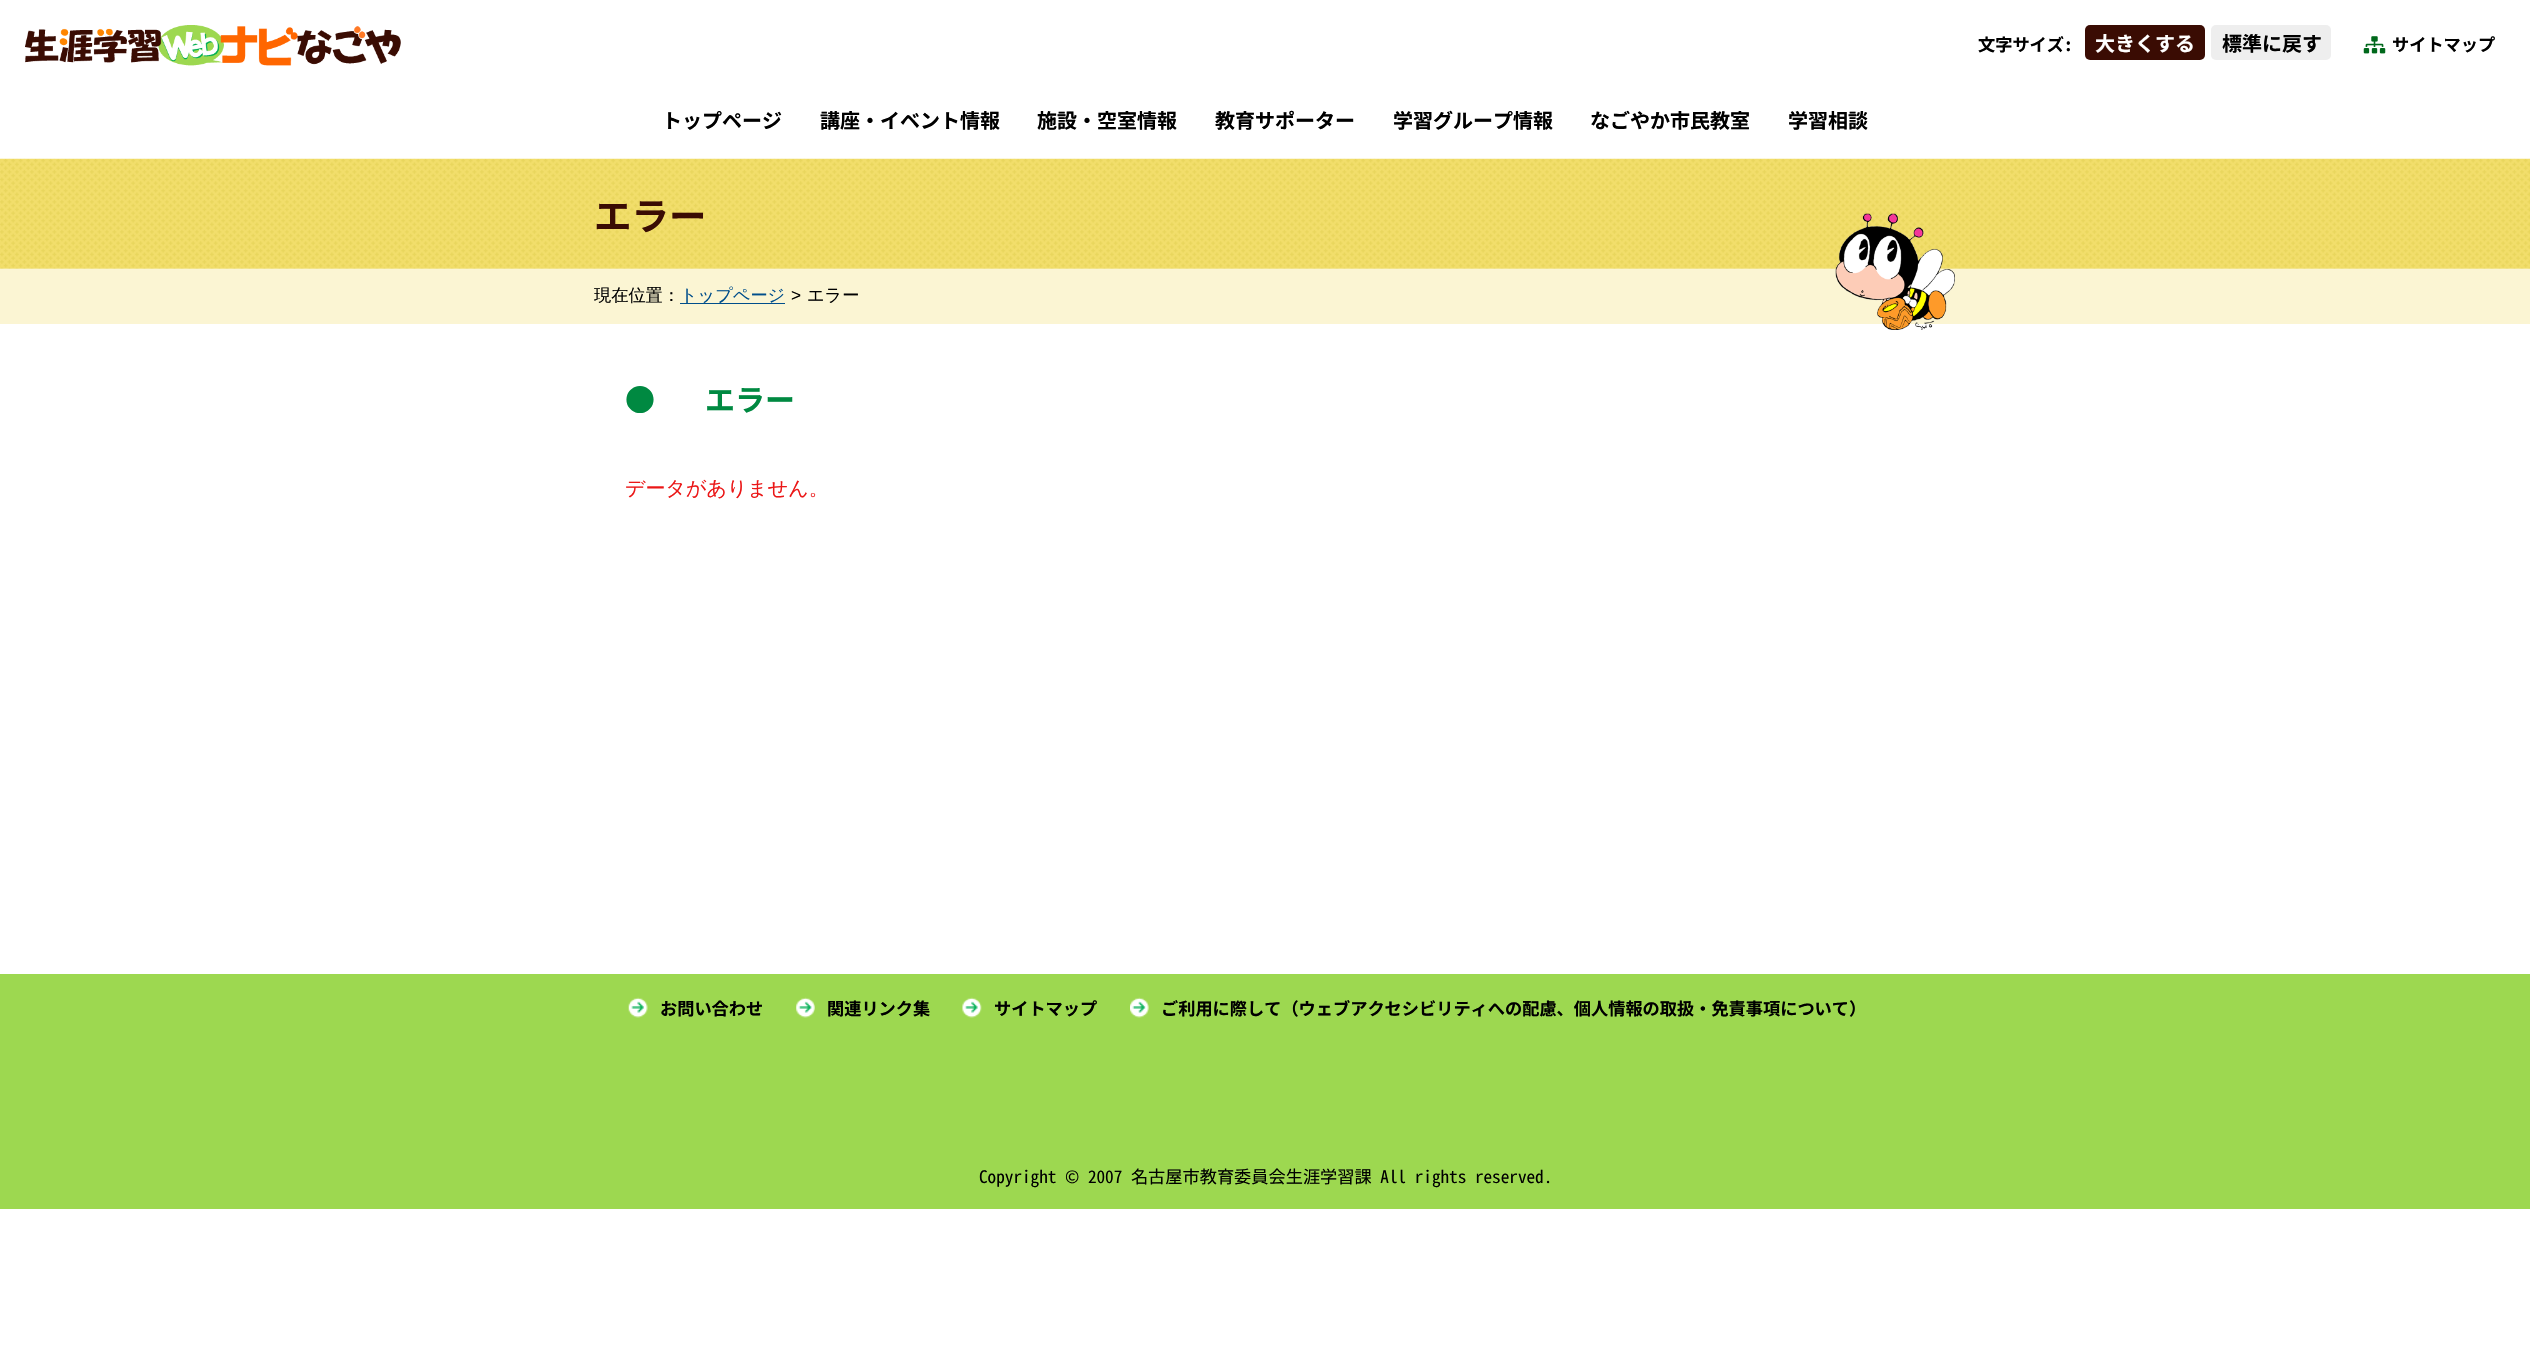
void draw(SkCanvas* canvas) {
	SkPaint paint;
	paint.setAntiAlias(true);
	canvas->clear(0xffffffff);
	canvas->drawImageRect(SkImages::DeferredFromEncodedData(SkData::MakeFromFileName("img1.png")), SkRect::MakeXYWH(25, 25, 376, 41), SkSamplingOptions());
	SkFont f1(fontMgr->matchFamilyStyle("Noto Sans Mono CJK JP", SkFontStyle::Bold()), 17.2);
	f1.setSubpixel(true);
	paint.setColor(0xff000000);
	canvas->drawString("文字サイズ:", 1978, 51, f1, paint);
	paint.setColor(0xff3a0c03);
	canvas->drawRoundRect(SkRect::MakeXYWH(2085, 25, 120, 35), 5, 5, paint);
	SkFont f2(fontMgr->matchFamilyStyle("Noto Sans Mono CJK JP", SkFontStyle::Bold()), 20);
	f2.setSubpixel(true);
	paint.setColor(0xffffffff);
	canvas->drawString("大きくする", 2095, 51, f2, paint);
	paint.setColor(0xffeeeeee);
	canvas->drawRoundRect(SkRect::MakeXYWH(2211, 25, 120, 35), 5, 5, paint);
	paint.setColor(0xff000000);
	canvas->drawString("標準に戻す", 2222, 51, f2, paint);
	canvas->drawImageRect(SkImages::DeferredFromEncodedData(SkData::MakeFromFileName("img2.png")), SkRect::MakeXYWH(2363, 36, 23, 18), SkSamplingOptions());
	canvas->drawString("サイトマップ", 2392, 51, f1, paint);
	canvas->drawString("トップページ", 662, 128, f2, paint);
	canvas->drawString("講座・イベント情報", 820, 128, f2, paint);
	canvas->drawString("施設・空室情報", 1037, 128, f2, paint);
	canvas->drawString("教育サポーター", 1215, 128, f2, paint);
	canvas->drawString("学習グループ情報", 1393, 128, f2, paint);
	canvas->drawString("なごやか市民教室", 1590, 128, f2, paint);
	canvas->drawString("学習相談", 1788, 128, f2, paint);
	canvas->drawImageRect(SkImages::DeferredFromEncodedData(SkData::MakeFromFileName("img3.png")), SkRect::MakeXYWH(0, 158, 2530, 111), SkSamplingOptions());
	SkFont f3(fontMgr->matchFamilyStyle("Noto Sans Mono CJK JP", SkFontStyle::Bold()), 37.5);
	f3.setSubpixel(true);
	paint.setColor(0xff3a0c03);
	canvas->drawString("エラー", 594, 230, f3, paint);
	paint.setColor(0xfffbf5d3);
	canvas->drawRect(SkRect::MakeXYWH(0, 269, 2530, 55), paint);
	SkFont f4(fontMgr->matchFamilyStyle("WenQuanYi Zen Hei", SkFontStyle(500, SkFontStyle::kNormal_Width, SkFontStyle::kUpright_Slant)), 17.2);
	f4.setSubpixel(true);
	paint.setColor(0xff000000);
	canvas->drawString("現在位置：", 594, 301, f4, paint);
	paint.setColor(0xff004e8b);
	canvas->drawRect(SkRect::MakeXYWH(680, 303, 105, 1), paint);
	canvas->drawString("トップページ", 680, 301, f4, paint);
	SkFont f5(fontMgr->matchFamilyStyle("Liberation Sans", SkFontStyle::Normal()), 17.2);
	f5.setSubpixel(true);
	paint.setColor(0xff000000);
	canvas->drawString(">", 791, 301, f5, paint);
	canvas->drawString("エラー", 807, 301, f4, paint);
	canvas->drawImageRect(SkImages::DeferredFromEncodedData(SkData::MakeFromFileName("img4.png")), SkRect::MakeXYWH(1835, 213, 120, 117), SkSamplingOptions());
	SkFont f6(fontMgr->matchFamilyStyle("Noto Sans Mono CJK JP", SkFontStyle::Bold()), 30);
	f6.setSubpixel(true);
	paint.setColor(0xff008941);
	canvas->drawString("●", 625, 411, f6, paint);
	canvas->drawString("エラー", 705, 411, f6, paint);
	SkFont f7(fontMgr->matchFamilyStyle("WenQuanYi Zen Hei", SkFontStyle(500, SkFontStyle::kNormal_Width, SkFontStyle::kUpright_Slant)), 20);
	f7.setSubpixel(true);
	paint.setColor(0xffeb1717);
	canvas->drawString("データがありません。", 625, 495, f7, paint);
	paint.setColor(0xff9dd850);
	canvas->drawRect(SkRect::MakeXYWH(0, 974, 2530, 235), paint);
	canvas->drawImageRect(SkImages::DeferredFromEncodedData(SkData::MakeFromFileName("img5.png")), SkRect::MakeXYWH(628, 997, 20, 21), SkSamplingOptions());
	paint.setColor(0xff000000);
	canvas->drawString("お問い合わせ", 660, 1015, f1, paint);
	canvas->drawImageRect(SkImages::DeferredFromEncodedData(SkData::MakeFromFileName("img6.png")), SkRect::MakeXYWH(796, 997, 19, 21), SkSamplingOptions());
	canvas->drawString("関連リンク集", 827, 1015, f1, paint);
	canvas->drawImageRect(SkImages::DeferredFromEncodedData(SkData::MakeFromFileName("img7.png")), SkRect::MakeXYWH(962, 997, 20, 21), SkSamplingOptions());
	canvas->drawString("サイトマップ", 994, 1015, f1, paint);
	canvas->drawImageRect(SkImages::DeferredFromEncodedData(SkData::MakeFromFileName("img8.png")), SkRect::MakeXYWH(1130, 997, 19, 21), SkSamplingOptions());
	canvas->drawString("ご利用に際して（ウェブアクセシビリティへの配慮、個人情報の取扱・免責事項について）", 1161, 1015, f1, paint);
	SkFont f8(fontMgr->matchFamilyStyle("Noto Sans Mono CJK JP", SkFontStyle::Normal()), 17.2);
	f8.setSubpixel(true);
	canvas->drawString("Copyright © 2007 名古屋市教育委員会生涯学習課 All rights reserved.", 979, 1183, f8, paint);
}
